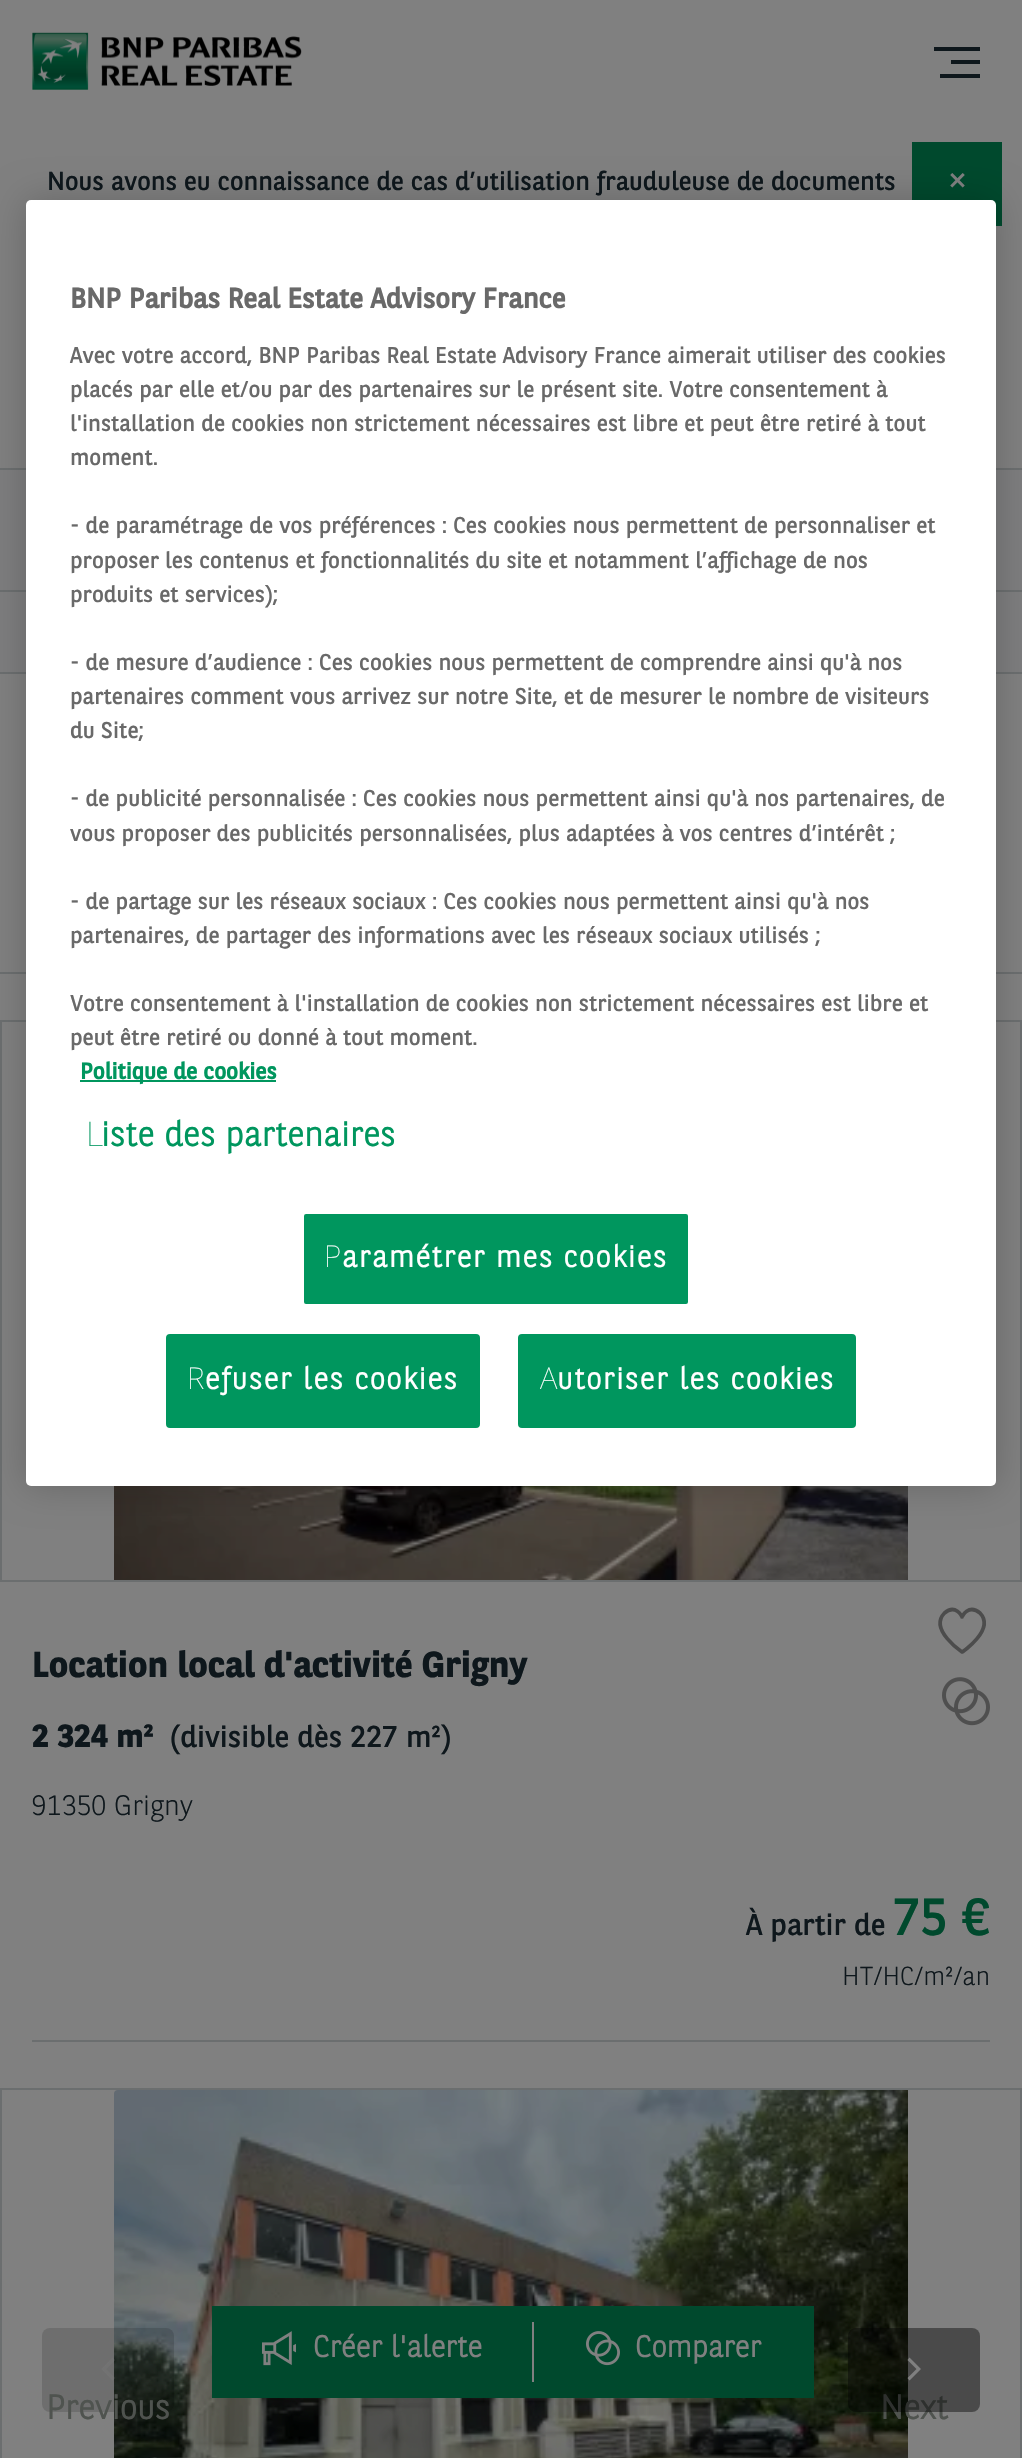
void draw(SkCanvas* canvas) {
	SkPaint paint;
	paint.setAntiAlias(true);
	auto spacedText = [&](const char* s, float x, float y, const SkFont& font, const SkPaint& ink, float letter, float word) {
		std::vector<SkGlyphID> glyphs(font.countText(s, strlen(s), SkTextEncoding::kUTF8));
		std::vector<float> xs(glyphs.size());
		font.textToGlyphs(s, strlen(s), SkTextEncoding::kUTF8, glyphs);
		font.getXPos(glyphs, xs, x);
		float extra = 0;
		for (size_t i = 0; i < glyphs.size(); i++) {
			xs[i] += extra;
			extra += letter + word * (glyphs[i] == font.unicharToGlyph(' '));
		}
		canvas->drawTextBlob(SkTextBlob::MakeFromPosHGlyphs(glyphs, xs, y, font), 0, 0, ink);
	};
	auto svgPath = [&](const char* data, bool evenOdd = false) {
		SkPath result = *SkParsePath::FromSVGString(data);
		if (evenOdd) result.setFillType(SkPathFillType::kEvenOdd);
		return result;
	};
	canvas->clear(0xff808080);
	paint.setColor(0xff6b6e6f);
	canvas->drawRect(SkRect::MakeXYWH(0, 468, 1022, 2), paint);
	canvas->drawImageRect(SkImages::DeferredFromEncodedData(SkData::MakeFromFileName("img1.png")), SkRect::MakeXYWH(32, 32, 270, 58), SkSamplingOptions());
	paint.setColor(0xff0e171c);
	canvas->drawPath(svgPath("M980 74V78H940V74ZM980 60V64H951V60ZM980 47V51H934V47Z"), paint);
	SkFont f1(fontMgr->matchFamilyStyle("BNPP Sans", SkFontStyle::Normal()), 26);
	f1.setSubpixel(true);
	canvas->drawString("Nous avons eu connaissance de cas d’utilisation frauduleuse de documents", 47, 190, f1, paint);
	paint.setColor(0xff00492d);
	canvas->drawRect(SkRect::MakeXYWH(912, 142, 90, 84), paint);
	SkFont f2(fontMgr->matchFamilyStyle("BNPP Sans", SkFontStyle::Bold()), 34);
	f2.setSubpixel(true);
	paint.setColor(0xff808080);
	canvas->drawString("×", 948, 192, f2, paint);
	paint.setColor(0xff7d7d7e);
	canvas->drawRect(SkRect::MakeXYWH(0, 470, 1022, 202), paint);
	paint.setColor(0xff6b6e6f);
	canvas->drawRect(SkRect::MakeXYWH(0, 590, 1022, 2), paint);
	canvas->drawRect(SkRect::MakeXYWH(0, 672, 26, 2), paint);
	canvas->drawRect(SkRect::MakeXYWH(996, 672, 26, 2), paint);
	canvas->drawRect(SkRect::MakeXYWH(0, 972, 1022, 2), paint);
	paint.setStroke(true);
	paint.setStrokeWidth(2);
	canvas->drawRect(SkRect::MakeXYWH(1, 1021, 1020, 560), paint);
	canvas->drawImageRect(SkImages::DeferredFromEncodedData(SkData::MakeFromFileName("img2.png")), SkRect::MakeXYWH(114, 1486, 794, 94), SkSamplingOptions());
	SkFont f3(fontMgr->matchFamilyStyle("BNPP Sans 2", SkFontStyle::Bold()), 36);
	f3.setSubpixel(true);
	paint.setStroke(false);
	paint.setColor(0xff0e171c);
	canvas->drawString("Location local d'activité Grigny", 32, 1677, f3, paint);
	SkFont f4(fontMgr->matchFamilyStyle("BNPP Sans 2", SkFontStyle::Bold()), 32);
	f4.setSubpixel(true);
	canvas->drawString("2 324 m²", 32, 1747, f4, paint);
	SkFont f5(fontMgr->matchFamilyStyle("BNPP Sans", SkFontStyle::Normal()), 30);
	f5.setSubpixel(true);
	canvas->drawString("(divisible dès 227 m²)", 170, 1747, f5, paint);
	SkFont f6(fontMgr->matchFamilyStyle("BNPP Sans", SkFontStyle(300, SkFontStyle::kNormal_Width, SkFontStyle::kUpright_Slant)), 28);
	f6.setSubpixel(true);
	canvas->drawString("91350 Grigny", 32, 1815, f6, paint);
	paint.setStroke(true);
	paint.setStrokeWidth(3.7);
	paint.setStrokeJoin(SkPaint::kRound_Join);
	paint.setColor(0xff4c4c4c);
	canvas->drawPath(svgPath("M962 1617C962 1616.5 955.5 1603.5 944.5 1613C928.5 1629.5 962 1652 962 1652C962.5 1652 995.5 1629.5 980 1613C968.5 1603.5 962 1616.5 962 1617Z"), paint);
	canvas->drawImageRect(SkImages::DeferredFromEncodedData(SkData::MakeFromFileName("img3.png")), SkRect::MakeXYWH(942, 1677, 48, 49), SkSamplingOptions());
	paint.setStroke(false);
	paint.setColor(0xff0e171c);
	canvas->drawString("À partir de", 746, 1935, f5, paint);
	SkFont f7(fontMgr->matchFamilyStyle("BNPP Sans", SkFontStyle::Normal()), 52);
	f7.setSubpixel(true);
	paint.setColor(0xff00492d);
	canvas->drawString("75 €", 893, 1935, f7, paint);
	SkFont f8(fontMgr->matchFamilyStyle("BNPP Sans", SkFontStyle(300, SkFontStyle::kNormal_Width, SkFontStyle::kUpright_Slant)), 26);
	f8.setSubpixel(true);
	paint.setColor(0xff0e171c);
	canvas->drawString("HT/HC/m²/an", 842, 1985, f8, paint);
	paint.setColor(0xff6b6e6f);
	canvas->drawRect(SkRect::MakeXYWH(32, 2040, 958, 2), paint);
	paint.setStroke(true);
	paint.setStrokeWidth(2);
	paint.setStrokeJoin(SkPaint::kMiter_Join);
	canvas->drawRect(SkRect::MakeXYWH(1, 2089, 1020, 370), paint);
	canvas->drawImageRect(SkImages::DeferredFromEncodedData(SkData::MakeFromFileName("img4.png")), SkRect::MakeXYWH(114, 2090, 794, 368), SkSamplingOptions());
	paint.setStroke(false);
	paint.setColor(0x24000000);
	canvas->drawRoundRect(SkRect::MakeXYWH(42, 2328, 132, 84), 8, 8, paint);
	paint.setColor(0x40808080);
	canvas->drawPath(svgPath("M115 2360L106 2369L115 2378L112.5 2380.5L101.5 2369L112.5 2357.5Z"), paint);
	paint.setColor(0xff4f534f);
	canvas->drawString("Previous", 46, 2419, f2, paint);
	canvas->drawString("Next", 880, 2419, f2, paint);
	paint.setColor(0x6b000000);
	canvas->drawRoundRect(SkRect::MakeXYWH(848, 2328, 132, 84), 8, 8, paint);
	paint.setColor(0xff808080);
	canvas->drawPath(svgPath("M907.5 2360L916.5 2369L907.5 2378L909.5 2380.5L921 2369L909.5 2357.5Z"), paint);
	paint.setColor(0xff00492d);
	canvas->drawRect(SkRect::MakeXYWH(212, 2306, 602, 92), paint);
	canvas->drawImageRect(SkImages::DeferredFromEncodedData(SkData::MakeFromFileName("img5.png")), SkRect::MakeXYWH(262, 2331, 34, 35), SkSamplingOptions());
	SkFont f9(fontMgr->matchFamilyStyle("BNPP Sans", SkFontStyle::Bold()), 30);
	f9.setSubpixel(true);
	paint.setColor(0xff808080);
	canvas->drawString("Créer l'alerte", 313, 2357, f9, paint);
	canvas->drawRect(SkRect::MakeXYWH(532, 2322, 2, 60), paint);
	canvas->drawImageRect(SkImages::DeferredFromEncodedData(SkData::MakeFromFileName("img6.png")), SkRect::MakeXYWH(586, 2331, 34, 35), SkSamplingOptions());
	canvas->drawString("Comparer", 635, 2357, f9, paint);
	paint.setColor(0x33000000);
	paint.setMaskFilter(SkMaskFilter::MakeBlur(kNormal_SkBlurStyle, 18));
	canvas->drawRoundRect(SkRect::MakeXYWH(26, 200, 970, 1286), 5, 5, paint);
	paint.setMaskFilter(nullptr);
	paint.setColor(0xffffffff);
	canvas->drawRoundRect(SkRect::MakeXYWH(26, 200, 970, 1286), 5, 5, paint);
	SkFont f10(fontMgr->matchFamilyStyle("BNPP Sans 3", SkFontStyle::Bold()), 28);
	f10.setSubpixel(true);
	paint.setColor(0xff696969);
	canvas->drawString("BNP Paribas Real Estate Advisory France", 70, 308, f10, paint);
	SkFont f11(fontMgr->matchFamilyStyle("BNPP Sans", SkFontStyle::Normal()), 22.75);
	f11.setSubpixel(true);
	canvas->drawString("Avec votre accord, BNP Paribas Real Estate Advisory France aimerait utiliser des cookies", 70, 363, f11, paint);
	canvas->drawString("placés par elle et/ou par des partenaires sur le présent site. Votre consentement à", 70, 397, f11, paint);
	canvas->drawString("l'installation de cookies non strictement nécessaires est libre et peut être retiré à tout", 70, 431, f11, paint);
	canvas->drawString("moment.", 70, 465, f11, paint);
	canvas->drawString("- de paramétrage de vos préférences : Ces cookies nous permettent de personnaliser et", 70, 533, f11, paint);
	canvas->drawString("proposer les contenus et fonctionnalités du site et notamment l’affichage de nos", 70, 568, f11, paint);
	canvas->drawString("produits et services);", 70, 602, f11, paint);
	canvas->drawString("- de mesure d’audience : Ces cookies nous permettent de comprendre ainsi qu'à nos", 70, 670, f11, paint);
	canvas->drawString("partenaires comment vous arrivez sur notre Site, et de mesurer le nombre de visiteurs", 70, 704, f11, paint);
	canvas->drawString("du Site;", 70, 738, f11, paint);
	canvas->drawString("- de publicité personnalisée : Ces cookies nous permettent ainsi qu'à nos partenaires, de", 70, 806, f11, paint);
	canvas->drawString("vous proposer des publicités personnalisées, plus adaptées à vos centres d’intérêt ;", 70, 841, f11, paint);
	canvas->drawString("- de partage sur les réseaux sociaux : Ces cookies nous permettent ainsi qu'à nos", 70, 909, f11, paint);
	canvas->drawString("partenaires, de partager des informations avec les réseaux sociaux utilisés ;", 70, 943, f11, paint);
	canvas->drawString("Votre consentement à l'installation de cookies non strictement nécessaires est libre et", 70, 1011, f11, paint);
	canvas->drawString("peut être retiré ou donné à tout moment.", 70, 1045, f11, paint);
	paint.setColor(0xff00965e);
	canvas->drawRect(SkRect::MakeXYWH(80, 1080, 196, 2), paint);
	SkFont f12(fontMgr->matchFamilyStyle("BNPP Sans 3", SkFontStyle::Bold()), 22.75);
	f12.setSubpixel(true);
	canvas->drawString("Politique de cookies", 80, 1079, f12, paint);
	SkFont f13(fontMgr->matchFamilyStyle("Noto Sans", SkFontStyle(100, SkFontStyle::kNormal_Width, SkFontStyle::kUpright_Slant)), 34);
	f13.setSubpixel(true);
	spacedText("L", 86, 1146, f13, paint, 0.3, 0);
	spacedText("iste des partenaires", 101, 1146, f2, paint, 0.3, 0);
	canvas->drawRoundRect(SkRect::MakeXYWH(303, 1213, 386, 92), 3, 3, paint);
	paint.setStroke(true);
	paint.setColor(0xffffffff);
	canvas->drawRoundRect(SkRect::MakeXYWH(303, 1213, 386, 92), 3, 3, paint);
	SkFont f14(fontMgr->matchFamilyStyle("Noto Sans", SkFontStyle(100, SkFontStyle::kNormal_Width, SkFontStyle::kUpright_Slant)), 30);
	f14.setSubpixel(true);
	paint.setStroke(false);
	spacedText("P", 324, 1267, f14, paint, 1.5, 0);
	spacedText("aramétrer mes cookies", 342, 1267, f9, paint, 1.5, 0);
	paint.setColor(0xff00965e);
	canvas->drawRoundRect(SkRect::MakeXYWH(167, 1335, 312, 92), 3, 3, paint);
	paint.setStroke(true);
	canvas->drawRoundRect(SkRect::MakeXYWH(167, 1335, 312, 92), 3, 3, paint);
	paint.setStroke(false);
	paint.setColor(0xffffffff);
	spacedText("R", 187, 1389, f14, paint, 1.5, 0);
	spacedText("efuser les cookies", 205, 1389, f9, paint, 1.5, 0);
	paint.setColor(0xff00965e);
	canvas->drawRoundRect(SkRect::MakeXYWH(519, 1335, 336, 92), 3, 3, paint);
	paint.setStroke(true);
	canvas->drawRoundRect(SkRect::MakeXYWH(519, 1335, 336, 92), 3, 3, paint);
	paint.setStroke(false);
	paint.setColor(0xffffffff);
	spacedText("A", 540, 1389, f14, paint, 1.5, 0);
	spacedText("utoriser les cookies", 557, 1389, f9, paint, 1.5, 0);
}
